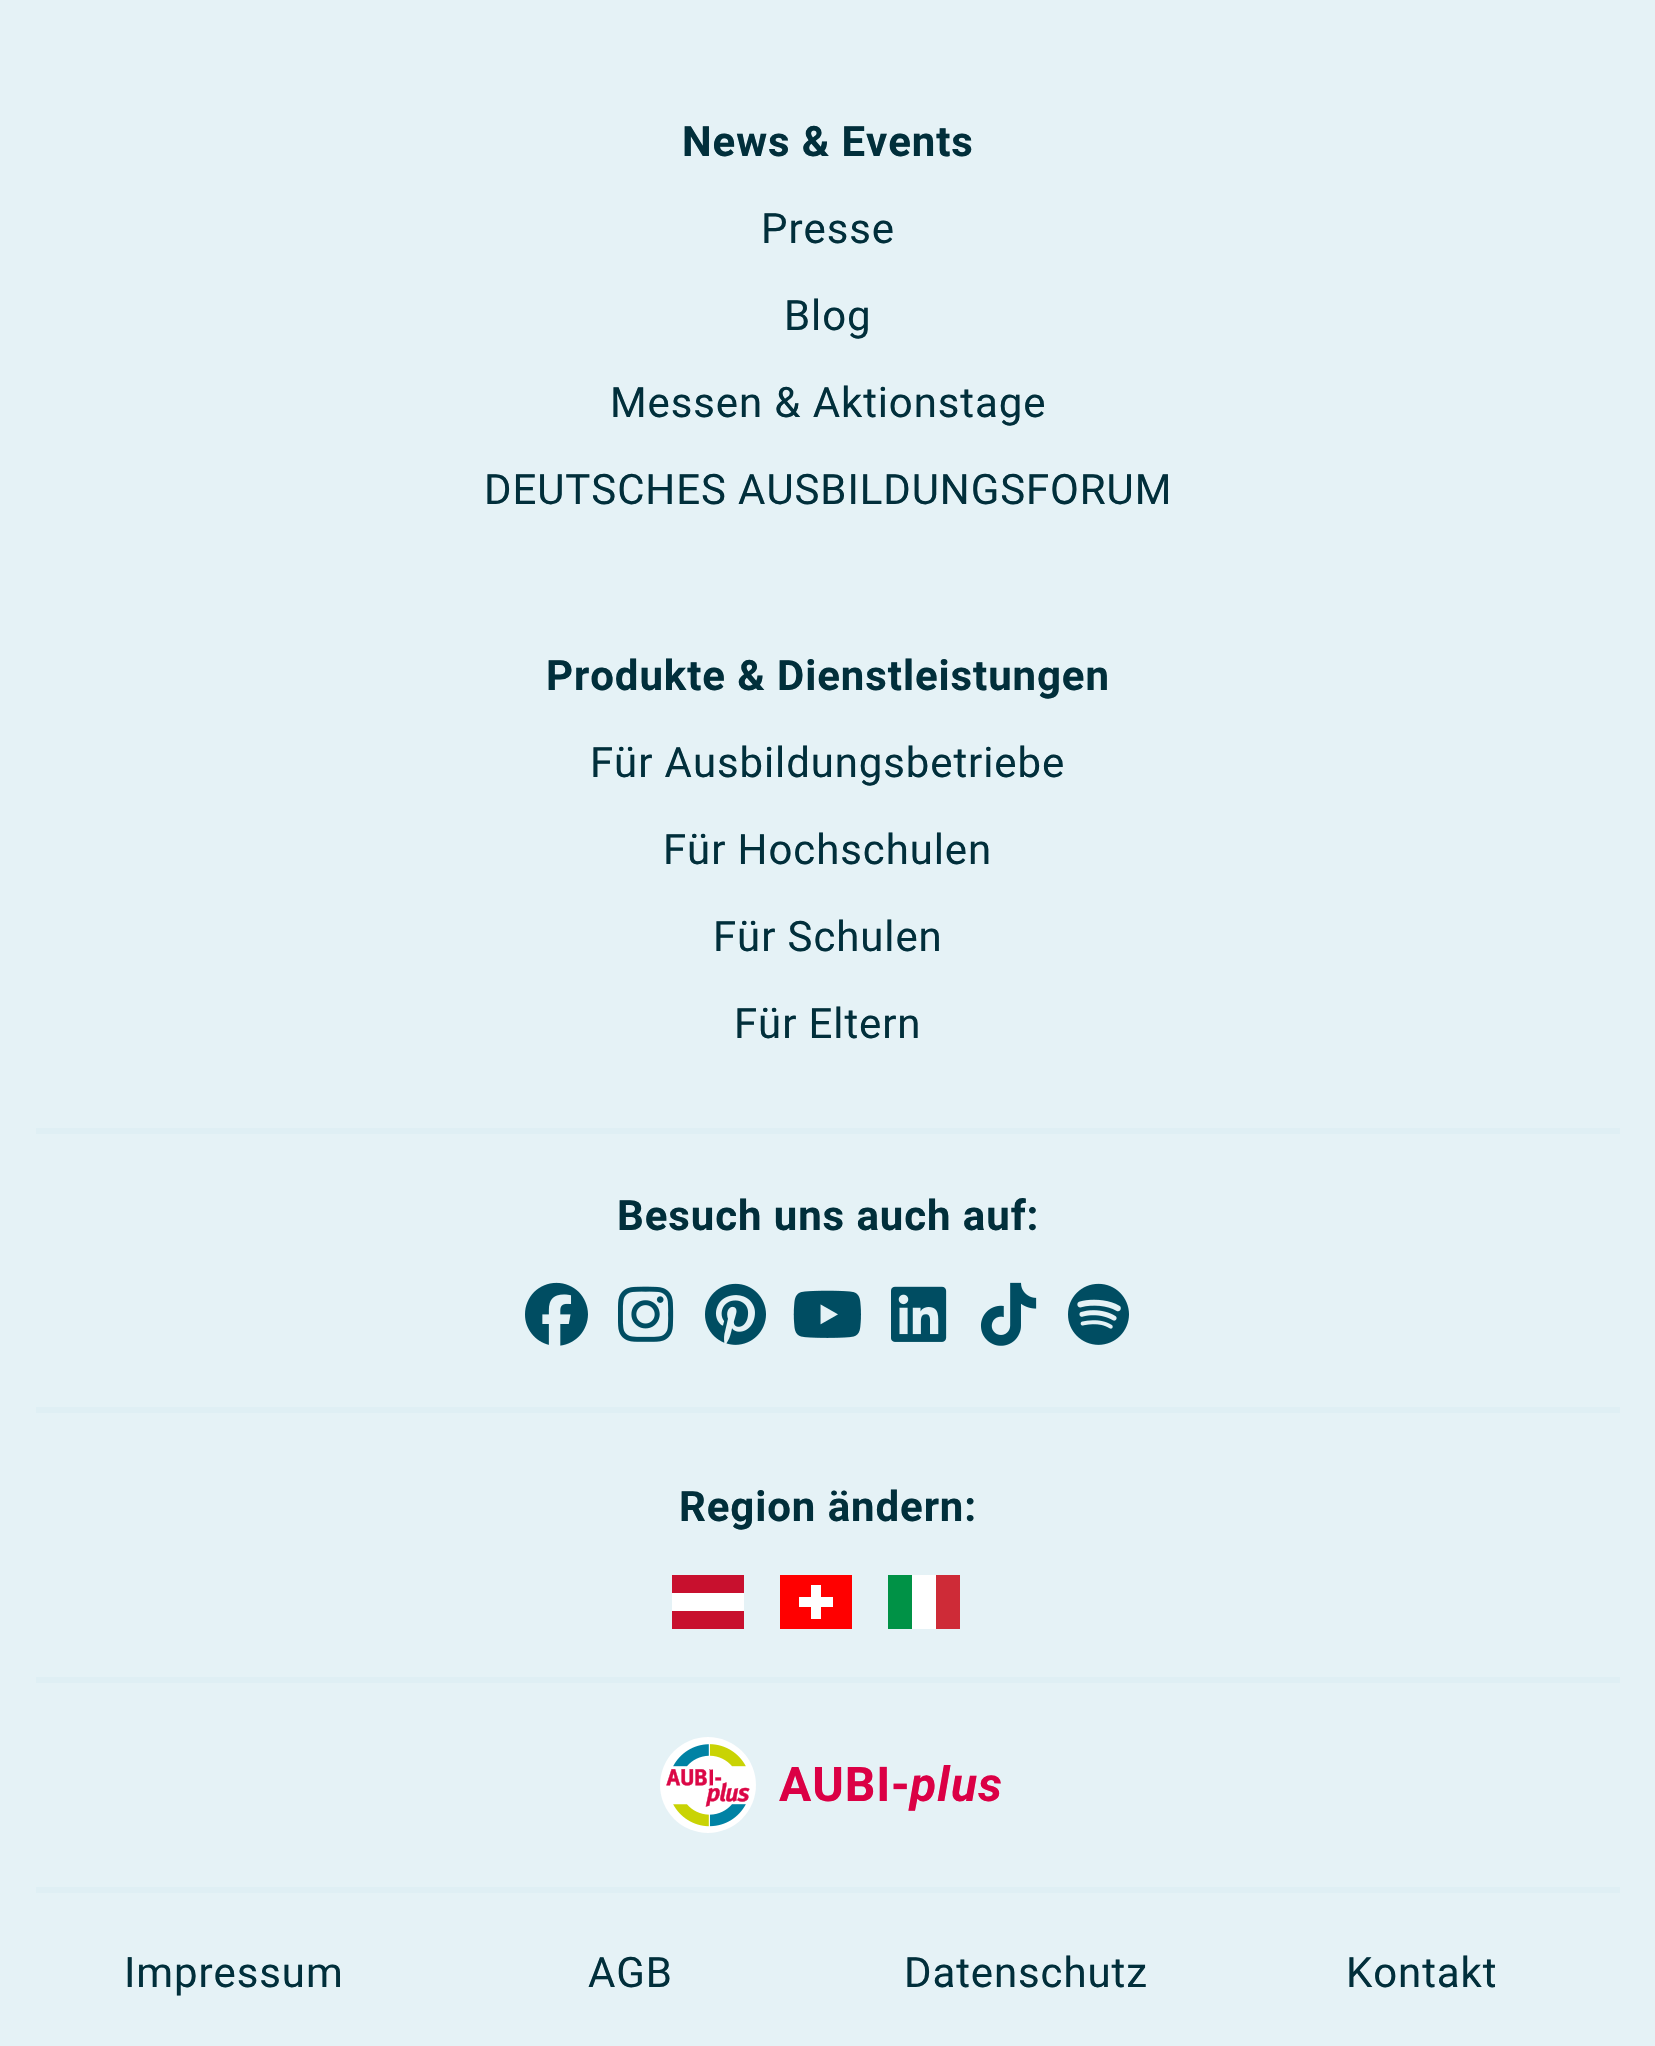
void draw(SkCanvas* canvas) {
	SkPaint paint;
	paint.setAntiAlias(true);
	auto spacedText = [&](const char* s, float x, float y, const SkFont& font, const SkPaint& ink, float letter, float word) {
		std::vector<SkGlyphID> glyphs(font.countText(s, strlen(s), SkTextEncoding::kUTF8));
		std::vector<float> xs(glyphs.size());
		font.textToGlyphs(s, strlen(s), SkTextEncoding::kUTF8, glyphs);
		font.getXPos(glyphs, xs, x);
		float extra = 0;
		for (size_t i = 0; i < glyphs.size(); i++) {
			xs[i] += extra;
			extra += letter + word * (glyphs[i] == font.unicharToGlyph(' '));
		}
		canvas->drawTextBlob(SkTextBlob::MakeFromPosHGlyphs(glyphs, xs, y, font), 0, 0, ink);
	};
	auto svgPath = [&](const char* data, bool evenOdd = false) {
		SkPath result = *SkParsePath::FromSVGString(data);
		if (evenOdd) result.setFillType(SkPathFillType::kEvenOdd);
		return result;
	};
	canvas->clear(0xffe5f2f6);
	SkFont f1(fontMgr->matchFamilyStyle("Roboto", SkFontStyle::Bold()), 42);
	f1.setSubpixel(true);
	paint.setColor(0xff012f3b);
	spacedText("News & Events", 682, 156, f1, paint, 0.9, 0);
	SkFont f2(fontMgr->matchFamilyStyle("Roboto", SkFontStyle::Normal()), 42);
	f2.setSubpixel(true);
	spacedText("Presse", 761, 243, f2, paint, 0.9, 0);
	spacedText("Blog", 784, 330, f2, paint, 0.9, 0);
	spacedText("Messen & Aktionstage", 610, 417, f2, paint, 0.9, 0);
	spacedText("DEUTSCHES AUSBILDUNGSFORUM", 484, 504, f2, paint, 0.9, 0);
	spacedText("Produkte & Dienstleistungen", 546, 690, f1, paint, 0.9, 0);
	spacedText("Für Ausbildungsbetriebe", 590, 777, f2, paint, 0.9, 0);
	spacedText("Für Hochschulen", 663, 864, f2, paint, 0.9, 0);
	spacedText("Für Schulen", 713, 951, f2, paint, 0.9, 0);
	spacedText("Für Eltern", 734, 1038, f2, paint, 0.9, 0);
	paint.setColor(0xffdfeff4);
	canvas->drawRect(SkRect::MakeXYWH(36, 1128, 1584, 6), paint);
	paint.setColor(0xff012f3b);
	spacedText("Besuch uns auch auf:", 617, 1230, f1, paint, 0.9, 0);
	canvas->drawImageRect(SkImages::DeferredFromEncodedData(SkData::MakeFromFileName("img1.png")), SkRect::MakeXYWH(525, 1282, 63, 64), SkSamplingOptions());
	canvas->drawImageRect(SkImages::DeferredFromEncodedData(SkData::MakeFromFileName("img2.png")), SkRect::MakeXYWH(618, 1286, 56, 56), SkSamplingOptions());
	canvas->drawImageRect(SkImages::DeferredFromEncodedData(SkData::MakeFromFileName("img3.png")), SkRect::MakeXYWH(705, 1283, 61, 62), SkSamplingOptions());
	canvas->drawImageRect(SkImages::DeferredFromEncodedData(SkData::MakeFromFileName("img4.png")), SkRect::MakeXYWH(793, 1290, 68, 48), SkSamplingOptions());
	canvas->drawImageRect(SkImages::DeferredFromEncodedData(SkData::MakeFromFileName("img5.png")), SkRect::MakeXYWH(891, 1286, 56, 56), SkSamplingOptions());
	canvas->drawImageRect(SkImages::DeferredFromEncodedData(SkData::MakeFromFileName("img6.png")), SkRect::MakeXYWH(980, 1282, 57, 64), SkSamplingOptions());
	canvas->drawImageRect(SkImages::DeferredFromEncodedData(SkData::MakeFromFileName("img7.png")), SkRect::MakeXYWH(1068, 1283, 61, 62), SkSamplingOptions());
	paint.setColor(0xffdfeff4);
	canvas->drawRect(SkRect::MakeXYWH(36, 1407, 1584, 6), paint);
	paint.setColor(0xff012f3b);
	spacedText("Region ändern:", 679, 1521, f1, paint, 0.9, 0);
	paint.setColor(0xffffffff);
	canvas->drawRect(SkRect::MakeXYWH(672, 1593, 72, 18), paint);
	paint.setColor(0xffc8102e);
	canvas->drawPath(svgPath("M672 1575H744V1593H672ZM672 1611H744V1629H672Z"), paint);
	paint.setColor(0xffff0000);
	canvas->drawRect(SkRect::MakeXYWH(780, 1575, 72, 54), paint);
	paint.setColor(0xffffffff);
	canvas->drawRect(SkRect::MakeXYWH(799, 1597, 34, 10), paint);
	canvas->drawRect(SkRect::MakeXYWH(811, 1585, 10, 34), paint);
	canvas->drawRect(SkRect::MakeXYWH(912, 1575, 24, 54), paint);
	paint.setColor(0xff009246);
	canvas->drawRect(SkRect::MakeXYWH(888, 1575, 24, 54), paint);
	paint.setColor(0xffce2b37);
	canvas->drawRect(SkRect::MakeXYWH(936, 1575, 24, 54), paint);
	paint.setColor(0xffdfeff4);
	canvas->drawRect(SkRect::MakeXYWH(36, 1677, 1584, 6), paint);
	paint.setColor(0xffffffff);
	canvas->drawCircle(708, 1785, 48, paint);
	canvas->drawImageRect(SkImages::DeferredFromEncodedData(SkData::MakeFromFileName("img8.png")), SkRect::MakeXYWH(666, 1744, 84, 83), SkSamplingOptions());
	SkFont f3(fontMgr->matchFamilyStyle("Roboto", SkFontStyle::Bold()), 48);
	f3.setSubpixel(true);
	paint.setColor(0xffdb0045);
	spacedText("AUBI-", 779, 1801, f3, paint, 0.9, 0);
	SkFont f4(fontMgr->matchFamilyStyle("Roboto", SkFontStyle::BoldItalic()), 48);
	f4.setSubpixel(true);
	spacedText("plus", 910, 1801, f4, paint, 0.9, 0);
	paint.setColor(0xffdfeff4);
	canvas->drawRect(SkRect::MakeXYWH(36, 1887, 1584, 6), paint);
	paint.setColor(0xff012f3b);
	spacedText("Impressum", 124, 1987, f2, paint, 0.9, 0);
	spacedText("AGB", 588, 1987, f2, paint, 0.9, 0);
	spacedText("Datenschutz", 904, 1987, f2, paint, 0.9, 0);
	spacedText("Kontakt", 1346, 1987, f2, paint, 0.9, 0);
}
